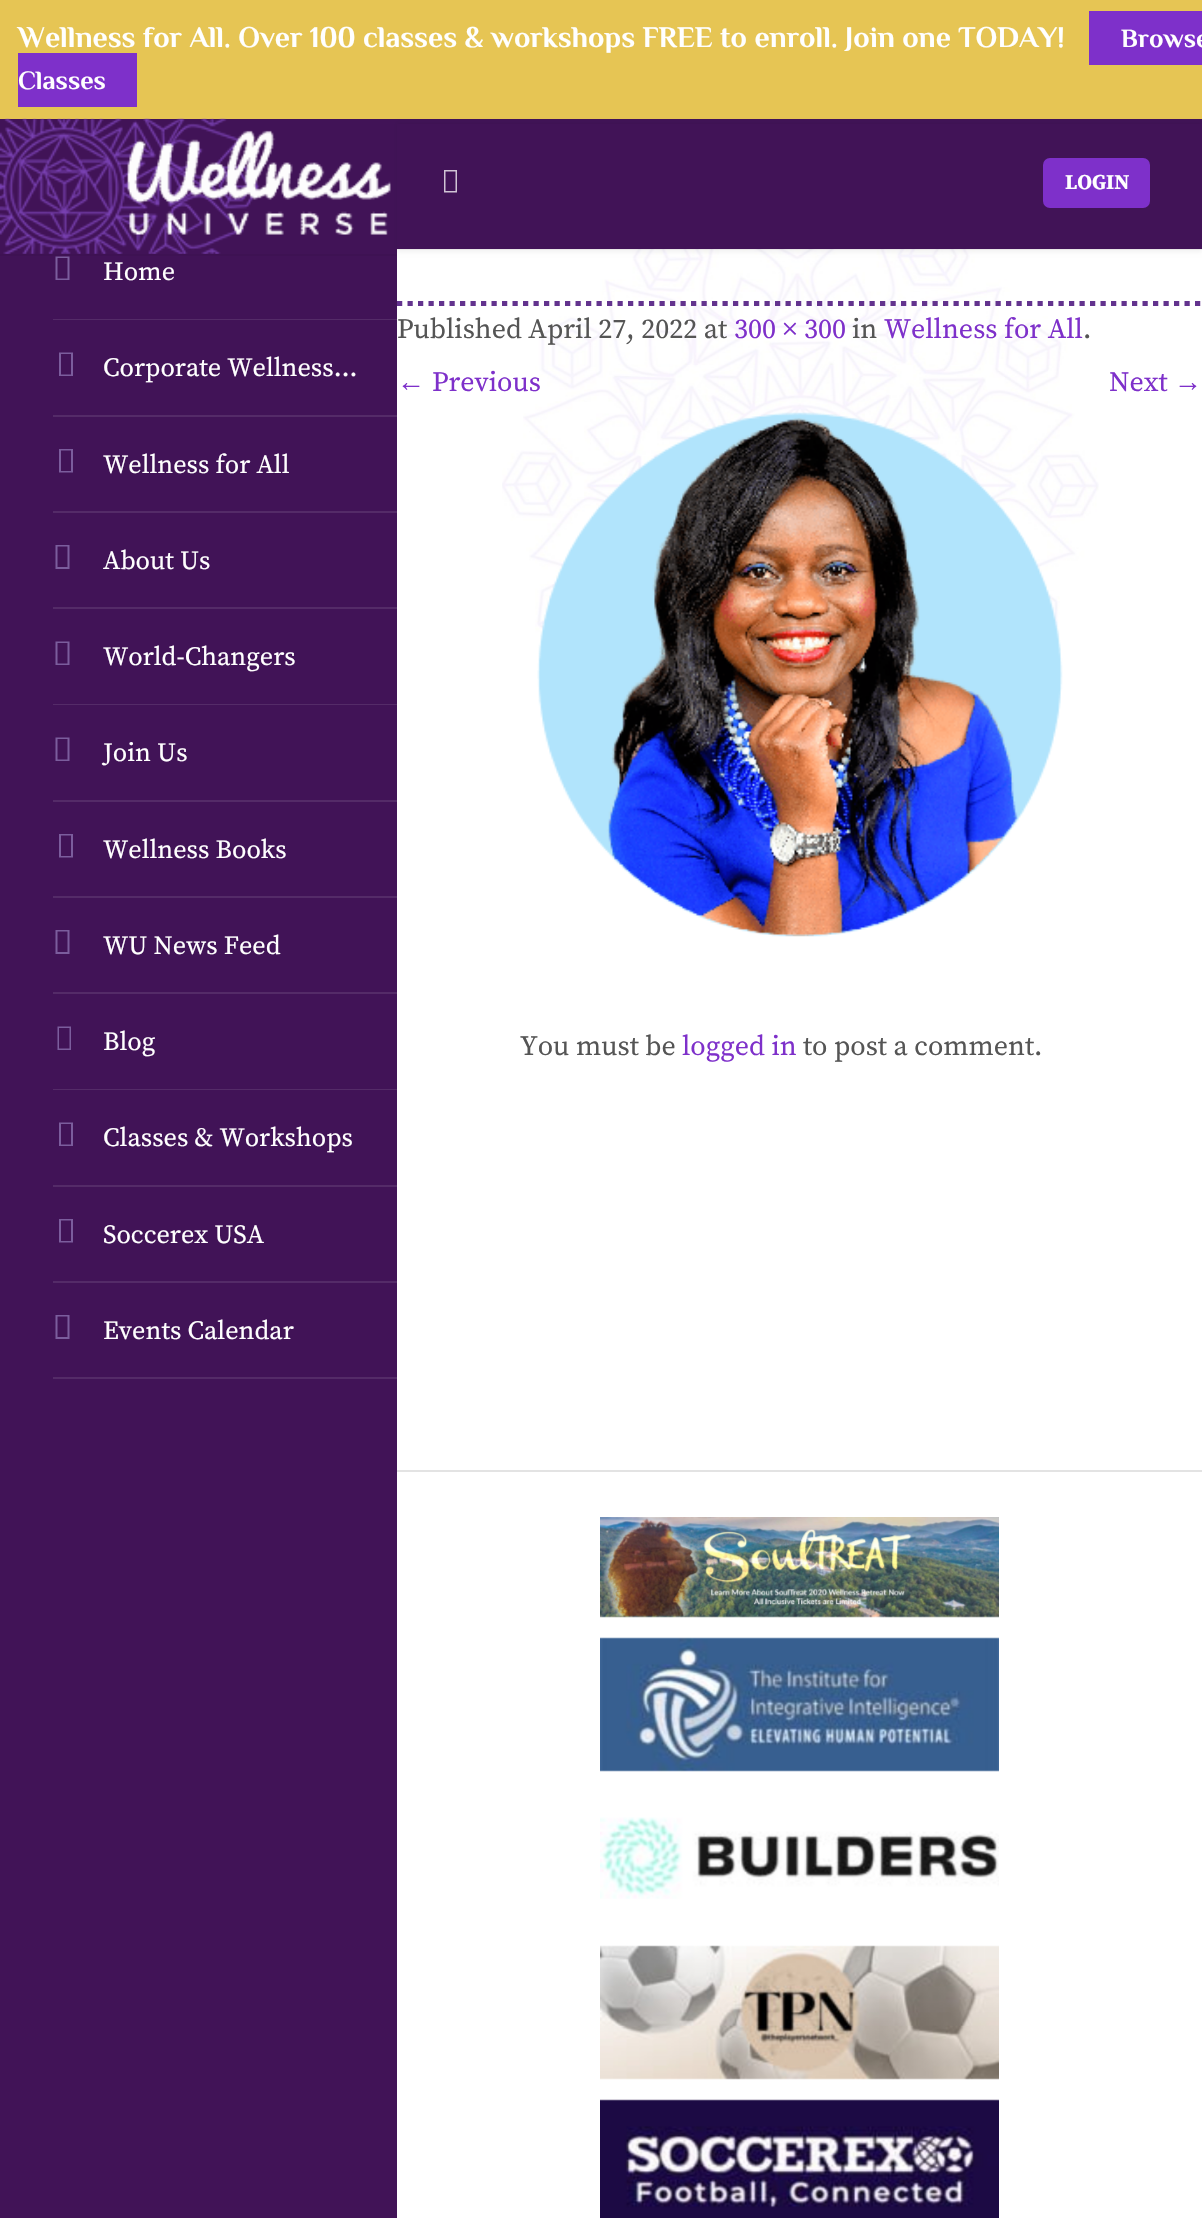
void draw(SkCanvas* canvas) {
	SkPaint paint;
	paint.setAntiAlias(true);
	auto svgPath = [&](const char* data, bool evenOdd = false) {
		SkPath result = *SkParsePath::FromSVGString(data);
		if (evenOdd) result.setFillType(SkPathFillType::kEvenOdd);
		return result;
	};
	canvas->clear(0xff411357);
	paint.setColor(0xffe6c554);
	canvas->drawRect(SkRect::MakeXYWH(0, 0, 1202, 119), paint);
	SkFont f1(fontMgr->matchFamilyStyle("Philosopher", SkFontStyle::Bold()), 29.75);
	f1.setSubpixel(true);
	paint.setColor(0xffffffff);
	canvas->drawString("Wellness for All. Over 100 classes & workshops FREE to enroll. Join one TODAY!", 18, 47, f1, paint);
	paint.setColor(0xff7e30ca);
	canvas->drawRect(SkRect::MakeXYWH(1089, 11, 113, 54), paint);
	SkFont f2(fontMgr->matchFamilyStyle("Philosopher", SkFontStyle::Bold()), 26.25);
	f2.setSubpixel(true);
	paint.setColor(0xffffffff);
	canvas->drawString("Browse", 1121, 47, f2, paint);
	paint.setColor(0xff7e30ca);
	canvas->drawRect(SkRect::MakeXYWH(18, 53, 119, 54), paint);
	paint.setColor(0xffffffff);
	canvas->drawString("Classes", 18, 89, f2, paint);
	canvas->drawRect(SkRect::MakeXYWH(397, 249, 805, 1221), paint);
	canvas->drawImageRect(SkImages::DeferredFromEncodedData(SkData::MakeFromFileName("img3.png")), SkRect::MakeXYWH(502, 249, 597, 534), SkSamplingOptions());
	paint.setColor(0x0d000000);
	canvas->drawPath(svgPath("M397 121V250H1202V248H397Z"), paint);
	paint.setMaskFilter(SkMaskFilter::MakeBlur(kNormal_SkBlurStyle, 2));
	canvas->drawRect(SkRect::MakeXYWH(397, 123, 805, 129), paint);
	paint.setMaskFilter(nullptr);
	paint.setColor(0xff3e1253);
	canvas->drawRect(SkRect::MakeXYWH(0, 254, 397, 2), paint);
	canvas->drawImageRect(SkImages::DeferredFromEncodedData(SkData::MakeFromFileName("img1.png")), SkRect::MakeXYWH(0, 118, 260, 136), SkSamplingOptions());
	canvas->drawImageRect(SkImages::DeferredFromEncodedData(SkData::MakeFromFileName("img2.png")), SkRect::MakeXYWH(127, 130, 264, 105), SkSamplingOptions());
	paint.setColor(0xff411357);
	canvas->drawRect(SkRect::MakeXYWH(397, 124, 805, 125), paint);
	paint.setColor(0xffd0c4d5);
	canvas->drawPath(svgPath("M444 192.5V170H457V192.5ZM445.5 191H455.5V171.5H445.5Z"), paint);
	paint.setColor(0xff7e30ca);
	canvas->drawRoundRect(SkRect::MakeXYWH(1043, 158, 107, 50), 7, 7, paint);
	SkFont f3(fontMgr->matchFamilyStyle("Source Serif Pro", SkFontStyle::Bold()), 21);
	f3.setSubpixel(true);
	paint.setColor(0xffffffff);
	canvas->drawString("LOGIN", 1065, 189, f3, paint);
	paint.setColor(0xff7b5d9d);
	canvas->drawPath(svgPath("M55.5 280V256.5H69.5V280ZM57.5 278.5H67.5V258H57.5Z"), paint);
	SkFont f4(fontMgr->matchFamilyStyle("Source Serif Pro", SkFontStyle::Normal()), 26.25);
	f4.setSubpixel(true);
	paint.setColor(0xffffffff);
	canvas->drawString("Home", 103, 280, f4, paint);
	paint.setColor(0xff542b68);
	canvas->drawRect(SkRect::MakeXYWH(53, 319, 344, 1), paint);
	paint.setColor(0xff7b5d9d);
	canvas->drawPath(svgPath("M59 376V352.5H73V376ZM61 374.5H71V354H61Z"), paint);
	paint.setColor(0xffffffff);
	canvas->drawString("Corporate Wellness…", 103, 376, f4, paint);
	paint.setColor(0xff542b68);
	canvas->drawRect(SkRect::MakeXYWH(53, 415, 344, 2), paint);
	paint.setColor(0xff7b5d9d);
	canvas->drawPath(svgPath("M59 472.5V449H73V472.5ZM61 471H71V450.5H61Z"), paint);
	paint.setColor(0xffffffff);
	canvas->drawString("Wellness for All", 103, 473, f4, paint);
	paint.setColor(0xff542b68);
	canvas->drawRect(SkRect::MakeXYWH(53, 511, 344, 2), paint);
	paint.setColor(0xff7b5d9d);
	canvas->drawPath(svgPath("M55.5 569V545H69.5V569ZM57.5 567H67.5V546.5H57.5Z"), paint);
	paint.setColor(0xffffffff);
	canvas->drawString("About Us", 103, 569, f4, paint);
	paint.setColor(0xff542b68);
	canvas->drawRect(SkRect::MakeXYWH(53, 607, 344, 2), paint);
	paint.setColor(0xff7b5d9d);
	canvas->drawPath(svgPath("M55.5 665V641.5H69.5V665ZM57.5 663.5H67.5V643H57.5Z"), paint);
	paint.setColor(0xffffffff);
	canvas->drawString("World-Changers", 103, 665, f4, paint);
	paint.setColor(0xff542b68);
	canvas->drawRect(SkRect::MakeXYWH(53, 704, 344, 1), paint);
	paint.setColor(0xff7b5d9d);
	canvas->drawPath(svgPath("M55.5 761V737.5H69.5V761ZM57.5 759.5H67.5V739H57.5Z"), paint);
	paint.setColor(0xffffffff);
	canvas->drawString("Join Us", 103, 761, f4, paint);
	paint.setColor(0xff542b68);
	canvas->drawRect(SkRect::MakeXYWH(53, 800, 344, 2), paint);
	paint.setColor(0xff7b5d9d);
	canvas->drawPath(svgPath("M59 857.5V834H73V857.5ZM61 856H71V835.5H61Z"), paint);
	paint.setColor(0xffffffff);
	canvas->drawString("Wellness Books", 103, 858, f4, paint);
	paint.setColor(0xff542b68);
	canvas->drawRect(SkRect::MakeXYWH(53, 896, 344, 2), paint);
	paint.setColor(0xff7b5d9d);
	canvas->drawPath(svgPath("M55.5 954V930H69.5V954ZM57.5 952H67.5V931.5H57.5Z"), paint);
	paint.setColor(0xffffffff);
	canvas->drawString("WU News Feed", 103, 954, f4, paint);
	paint.setColor(0xff542b68);
	canvas->drawRect(SkRect::MakeXYWH(53, 992, 344, 2), paint);
	paint.setColor(0xff7b5d9d);
	canvas->drawPath(svgPath("M57.5 1050V1026.5H71V1050ZM59 1048.5H69.5V1028H59Z"), paint);
	paint.setColor(0xffffffff);
	canvas->drawString("Blog", 103, 1050, f4, paint);
	paint.setColor(0xff542b68);
	canvas->drawRect(SkRect::MakeXYWH(53, 1089, 344, 1), paint);
	paint.setColor(0xff7b5d9d);
	canvas->drawPath(svgPath("M59 1146V1122.5H73V1146ZM61 1144.5H71V1124H61Z"), paint);
	paint.setColor(0xffffffff);
	canvas->drawString("Classes & Workshops", 103, 1146, f4, paint);
	paint.setColor(0xff542b68);
	canvas->drawRect(SkRect::MakeXYWH(53, 1185, 344, 2), paint);
	paint.setColor(0xff7b5d9d);
	canvas->drawPath(svgPath("M59 1242.5V1219H73V1242.5ZM61 1241H71V1220.5H61Z"), paint);
	paint.setColor(0xffffffff);
	canvas->drawString("Soccerex USA", 103, 1243, f4, paint);
	paint.setColor(0xff542b68);
	canvas->drawRect(SkRect::MakeXYWH(53, 1281, 344, 2), paint);
	paint.setColor(0xff7b5d9d);
	canvas->drawPath(svgPath("M55.5 1339V1315H69.5V1339ZM57.5 1337H67.5V1316.5H57.5Z"), paint);
	paint.setColor(0xffffffff);
	canvas->drawString("Events Calendar", 103, 1339, f4, paint);
	paint.setColor(0xff542b68);
	canvas->drawRect(SkRect::MakeXYWH(53, 1377, 344, 2), paint);
	paint.setStroke(true);
	paint.setStrokeWidth(5.2);
	paint.setColor(0xff63338e);
	paint.setPathEffect(SkDashPathEffect::Make({{5.25f, 5.25f}}, 0));
	canvas->drawPath(svgPath("M397 303.5H1202"), paint);
	paint.setPathEffect(nullptr);
	SkFont f5(fontMgr->matchFamilyStyle("Source Serif Pro", SkFontStyle::Normal()), 28);
	f5.setSubpixel(true);
	paint.setStroke(false);
	paint.setColor(0xff555555);
	canvas->drawString("Published April 27, 2022 at", 397, 338, f5, paint);
	paint.setColor(0xff7e30ca);
	canvas->drawString("300 × 300", 734, 338, f5, paint);
	paint.setColor(0xff555555);
	canvas->drawString("in", 852, 338, f5, paint);
	paint.setColor(0xff7e30ca);
	canvas->drawString("Wellness for All", 884, 338, f5, paint);
	paint.setColor(0xff555555);
	canvas->drawString(".", 1083, 338, f5, paint);
	SkFont f6(fontMgr->matchFamilyStyle("Liberation Serif", SkFontStyle::Normal()), 28);
	f6.setSubpixel(true);
	paint.setColor(0xff7e30ca);
	canvas->drawString("←", 397, 391, f6, paint);
	canvas->drawString("Previous", 432, 391, f5, paint);
	canvas->drawString("Next", 1109, 391, f5, paint);
	canvas->drawString("→", 1174, 391, f6, paint);
	canvas->drawImageRect(SkImages::DeferredFromEncodedData(SkData::MakeFromFileName("img4.png")), SkRect::MakeXYWH(537, 412, 526, 525), SkSamplingOptions());
	paint.setColor(0xff555555);
	canvas->drawString("You must be", 520, 1055, f5, paint);
	paint.setColor(0xff7e30ca);
	canvas->drawString("logged in", 682, 1055, f5, paint);
	paint.setColor(0xff555555);
	canvas->drawString("to post a comment.", 803, 1055, f5, paint);
	paint.setColor(0xffffffff);
	canvas->drawRect(SkRect::MakeXYWH(397, 1472, 805, 746), paint);
	paint.setColor(0xffe3e3e3);
	canvas->drawRect(SkRect::MakeXYWH(397, 1470, 805, 2), paint);
	canvas->drawImageRect(SkImages::DeferredFromEncodedData(SkData::MakeFromFileName("img5.png")), SkRect::MakeXYWH(600, 1517, 399, 101), SkSamplingOptions());
	canvas->drawImageRect(SkImages::DeferredFromEncodedData(SkData::MakeFromFileName("img6.png")), SkRect::MakeXYWH(600, 1637, 399, 135), SkSamplingOptions());
	canvas->drawImageRect(SkImages::DeferredFromEncodedData(SkData::MakeFromFileName("img7.png")), SkRect::MakeXYWH(600, 1817, 399, 82), SkSamplingOptions());
	canvas->drawImageRect(SkImages::DeferredFromEncodedData(SkData::MakeFromFileName("img8.png")), SkRect::MakeXYWH(600, 1945, 399, 135), SkSamplingOptions());
	canvas->drawImageRect(SkImages::DeferredFromEncodedData(SkData::MakeFromFileName("img9.png")), SkRect::MakeXYWH(600, 2099, 399, 119), SkSamplingOptions());
}
